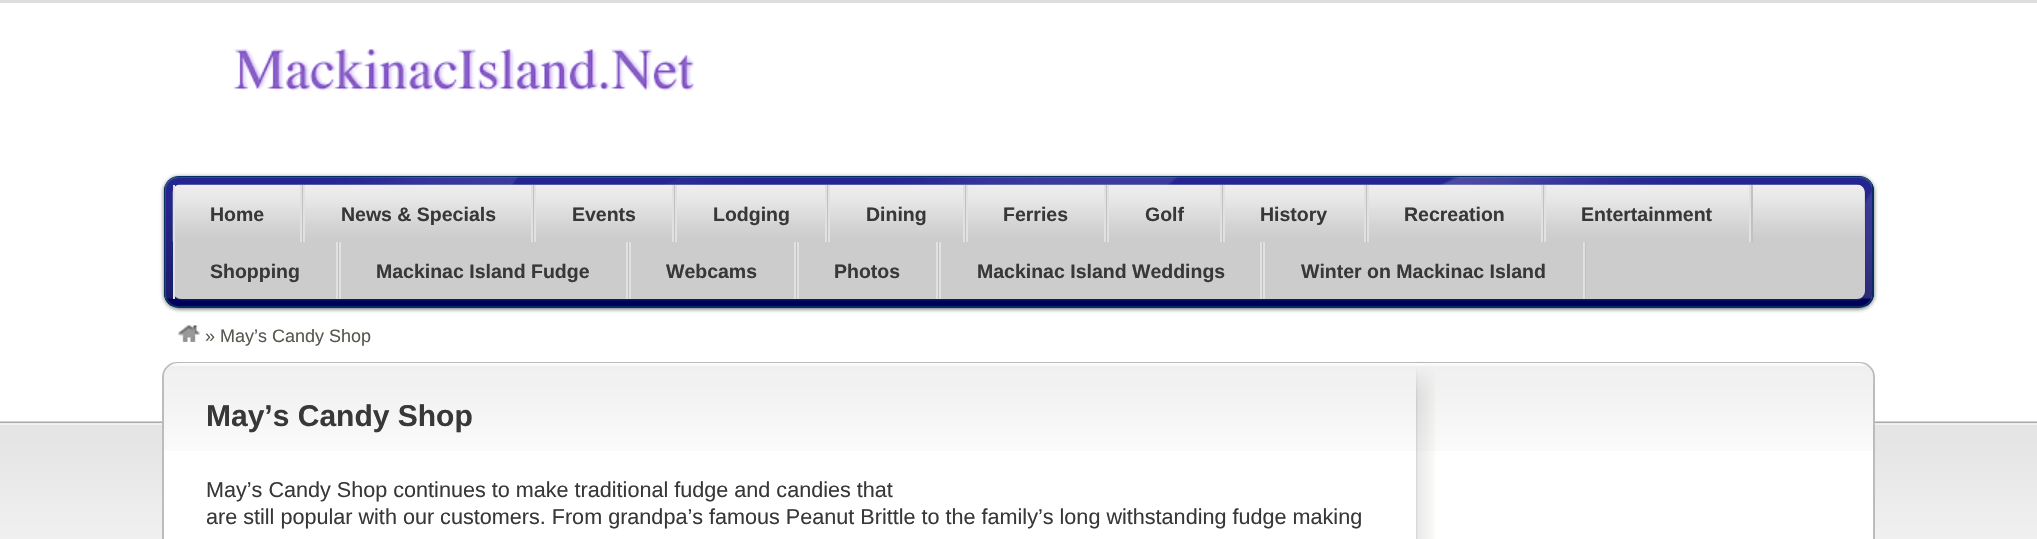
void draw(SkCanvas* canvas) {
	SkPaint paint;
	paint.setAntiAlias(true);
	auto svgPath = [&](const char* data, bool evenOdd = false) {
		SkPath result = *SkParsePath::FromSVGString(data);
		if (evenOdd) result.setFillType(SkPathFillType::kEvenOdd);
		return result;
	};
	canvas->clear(0xffffffff);
	paint.setColor(0xffdddddd);
	canvas->drawRect(SkRect::MakeXYWH(0, 0, 2037, 3), paint);
	canvas->drawImageRect(SkImages::DeferredFromEncodedData(SkData::MakeFromFileName("img1.png")), SkRect::MakeXYWH(233, 48, 462, 43), SkSamplingOptions());
	paint.setColor(0xff666666);
	paint.setMaskFilter(SkMaskFilter::MakeBlur(kNormal_SkBlurStyle, 2));
	canvas->drawRoundRect(SkRect::MakeXYWH(164, 177, 1710, 132), 15, 15, paint);
	paint.setMaskFilter(nullptr);
	canvas->save();
	canvas->clipPath(svgPath("M179 176H1859C1867.5 176 1874 182.5 1874 191V293C1874 301.5 1867.5 308 1859 308H179C170.5 308 164 301.5 164 293V191C164 182.5 170.5 176 179 176Z"), true);
	{
		const SkColor colors[] = {0xff000080, 0xff000059};
		const float stops[] = {0, 1};
		const SkPoint ends[] = {{1019, 177}, {1019, 306}};
		paint.setShader(SkGradientShader::MakeLinear(ends, colors, stops, 2, SkTileMode::kClamp));
		paint.setAlpha(255);
	}
	canvas->drawRect(SkRect::MakeXYWH(164, 177, 1710, 129), paint);
	canvas->restore();
	paint.setStroke(true);
	paint.setStrokeWidth(2);
	paint.setShader(nullptr);
	paint.setColor(0xff062f66);
	canvas->drawRoundRect(SkRect::MakeXYWH(165, 177, 1708, 130), 14, 14, paint);
	canvas->drawImageRect(SkImages::DeferredFromEncodedData(SkData::MakeFromFileName("img2.png")), SkRect::MakeXYWH(165, 177, 1707, 122), SkSamplingOptions());
	paint.setStroke(false);
	paint.setMaskFilter(SkMaskFilter::MakeBlur(kNormal_SkBlurStyle, 1));
	canvas->drawRoundRect(SkRect::MakeXYWH(173, 186, 1692, 114), 8, 8, paint);
	paint.setMaskFilter(nullptr);
	paint.setColor(0xffcccccc);
	canvas->drawRoundRect(SkRect::MakeXYWH(173, 185, 1692, 114), 8, 8, paint);
	canvas->drawImageRect(SkImages::DeferredFromEncodedData(SkData::MakeFromFileName("img3.png")), SkRect::MakeXYWH(172, 184, 1693, 58), SkSamplingOptions());
	paint.setColor(0xffc1c1c1);
	canvas->drawRect(SkRect::MakeXYWH(302, 185, 1, 57), paint);
	paint.setColor(0xffe1e1e1);
	canvas->drawRect(SkRect::MakeXYWH(173, 185, 2, 114), paint);
	canvas->drawRect(SkRect::MakeXYWH(300, 185, 2, 57), paint);
	SkFont f1(fontMgr->matchFamilyStyle("Liberation Sans", SkFontStyle::Bold()), 19.5);
	f1.setSubpixel(true);
	paint.setColor(0xff383838);
	canvas->drawString("Home", 210, 221, f1, paint);
	paint.setColor(0xffc1c1c1);
	canvas->drawRect(SkRect::MakeXYWH(533, 185, 1, 57), paint);
	paint.setColor(0xffe1e1e1);
	canvas->drawRect(SkRect::MakeXYWH(303, 185, 2, 57), paint);
	canvas->drawRect(SkRect::MakeXYWH(531, 185, 2, 57), paint);
	paint.setColor(0xff383838);
	canvas->drawString("News & Specials", 341, 221, f1, paint);
	paint.setColor(0xffc1c1c1);
	canvas->drawRect(SkRect::MakeXYWH(674, 185, 1, 57), paint);
	paint.setColor(0xffe1e1e1);
	canvas->drawRect(SkRect::MakeXYWH(534, 185, 2, 57), paint);
	canvas->drawRect(SkRect::MakeXYWH(672, 185, 2, 57), paint);
	paint.setColor(0xff383838);
	canvas->drawString("Events", 572, 221, f1, paint);
	paint.setColor(0xffc1c1c1);
	canvas->drawRect(SkRect::MakeXYWH(827, 185, 1, 57), paint);
	paint.setColor(0xffe1e1e1);
	canvas->drawRect(SkRect::MakeXYWH(675, 185, 2, 57), paint);
	canvas->drawRect(SkRect::MakeXYWH(825, 185, 2, 57), paint);
	paint.setColor(0xff383838);
	canvas->drawString("Lodging", 713, 221, f1, paint);
	paint.setColor(0xffc1c1c1);
	canvas->drawRect(SkRect::MakeXYWH(965, 185, 1, 57), paint);
	paint.setColor(0xffe1e1e1);
	canvas->drawRect(SkRect::MakeXYWH(828, 185, 2, 57), paint);
	canvas->drawRect(SkRect::MakeXYWH(963, 185, 2, 57), paint);
	paint.setColor(0xff383838);
	canvas->drawString("Dining", 866, 221, f1, paint);
	paint.setColor(0xffc1c1c1);
	canvas->drawRect(SkRect::MakeXYWH(1106, 185, 1, 57), paint);
	paint.setColor(0xffe1e1e1);
	canvas->drawRect(SkRect::MakeXYWH(966, 185, 2, 57), paint);
	canvas->drawRect(SkRect::MakeXYWH(1104, 185, 2, 57), paint);
	paint.setColor(0xff383838);
	canvas->drawString("Ferries", 1003, 221, f1, paint);
	paint.setColor(0xffc1c1c1);
	canvas->drawRect(SkRect::MakeXYWH(1222, 185, 1, 57), paint);
	paint.setColor(0xffe1e1e1);
	canvas->drawRect(SkRect::MakeXYWH(1107, 185, 2, 57), paint);
	canvas->drawRect(SkRect::MakeXYWH(1220, 185, 2, 57), paint);
	paint.setColor(0xff383838);
	canvas->drawString("Golf", 1145, 221, f1, paint);
	paint.setColor(0xffc1c1c1);
	canvas->drawRect(SkRect::MakeXYWH(1366, 185, 1, 57), paint);
	paint.setColor(0xffe1e1e1);
	canvas->drawRect(SkRect::MakeXYWH(1223, 185, 2, 57), paint);
	canvas->drawRect(SkRect::MakeXYWH(1364, 185, 2, 57), paint);
	paint.setColor(0xff383838);
	canvas->drawString("History", 1260, 221, f1, paint);
	paint.setColor(0xffc1c1c1);
	canvas->drawRect(SkRect::MakeXYWH(1543, 185, 1, 57), paint);
	paint.setColor(0xffe1e1e1);
	canvas->drawRect(SkRect::MakeXYWH(1367, 185, 2, 57), paint);
	canvas->drawRect(SkRect::MakeXYWH(1541, 185, 2, 57), paint);
	paint.setColor(0xff383838);
	canvas->drawString("Recreation", 1404, 221, f1, paint);
	paint.setColor(0xffc1c1c1);
	canvas->drawRect(SkRect::MakeXYWH(1751, 185, 2, 57), paint);
	paint.setColor(0xffe1e1e1);
	canvas->drawRect(SkRect::MakeXYWH(1544, 185, 2, 57), paint);
	canvas->drawRect(SkRect::MakeXYWH(1749, 185, 2, 57), paint);
	paint.setColor(0xff383838);
	canvas->drawString("Entertainment", 1581, 221, f1, paint);
	paint.setColor(0xffc1c1c1);
	canvas->drawRect(SkRect::MakeXYWH(338, 242, 1, 57), paint);
	paint.setColor(0xffe1e1e1);
	canvas->drawRect(SkRect::MakeXYWH(336, 242, 2, 57), paint);
	paint.setColor(0xff383838);
	canvas->drawString("Shopping", 210, 278, f1, paint);
	paint.setColor(0xffc1c1c1);
	canvas->drawRect(SkRect::MakeXYWH(628, 242, 1, 57), paint);
	paint.setColor(0xffe1e1e1);
	canvas->drawRect(SkRect::MakeXYWH(339, 242, 2, 57), paint);
	canvas->drawRect(SkRect::MakeXYWH(626, 242, 2, 57), paint);
	paint.setColor(0xff383838);
	canvas->drawString("Mackinac Island Fudge", 376, 278, f1, paint);
	paint.setColor(0xffc1c1c1);
	canvas->drawRect(SkRect::MakeXYWH(796, 242, 1, 57), paint);
	paint.setColor(0xffe1e1e1);
	canvas->drawRect(SkRect::MakeXYWH(629, 242, 2, 57), paint);
	canvas->drawRect(SkRect::MakeXYWH(794, 242, 2, 57), paint);
	paint.setColor(0xff383838);
	canvas->drawString("Webcams", 666, 278, f1, paint);
	paint.setColor(0xffc1c1c1);
	canvas->drawRect(SkRect::MakeXYWH(938, 242, 1, 57), paint);
	paint.setColor(0xffe1e1e1);
	canvas->drawRect(SkRect::MakeXYWH(797, 242, 2, 57), paint);
	canvas->drawRect(SkRect::MakeXYWH(936, 242, 2, 57), paint);
	paint.setColor(0xff383838);
	canvas->drawString("Photos", 834, 278, f1, paint);
	paint.setColor(0xffc1c1c1);
	canvas->drawRect(SkRect::MakeXYWH(1262, 242, 1, 57), paint);
	paint.setColor(0xffe1e1e1);
	canvas->drawRect(SkRect::MakeXYWH(939, 242, 2, 57), paint);
	canvas->drawRect(SkRect::MakeXYWH(1260, 242, 2, 57), paint);
	paint.setColor(0xff383838);
	canvas->drawString("Mackinac Island Weddings", 977, 278, f1, paint);
	paint.setColor(0xffc1c1c1);
	canvas->drawRect(SkRect::MakeXYWH(1585, 242, 1, 57), paint);
	paint.setColor(0xffe1e1e1);
	canvas->drawRect(SkRect::MakeXYWH(1263, 242, 2, 57), paint);
	canvas->drawRect(SkRect::MakeXYWH(1583, 242, 2, 57), paint);
	paint.setColor(0xff383838);
	canvas->drawString("Winter on Mackinac Island", 1301, 278, f1, paint);
	canvas->drawImageRect(SkImages::DeferredFromEncodedData(SkData::MakeFromFileName("img4.png")), SkRect::MakeXYWH(178, 325, 22, 17), SkSamplingOptions());
	SkFont f2(fontMgr->matchFamilyStyle("Liberation Sans", SkFontStyle::Normal()), 18);
	f2.setSubpixel(true);
	paint.setColor(0xff59584f);
	canvas->drawString("» May’s Candy Shop", 205, 342, f2, paint);
	canvas->drawImageRect(SkImages::DeferredFromEncodedData(SkData::MakeFromFileName("img5.png")), SkRect::MakeXYWH(0, 421, 2037, 118), SkSamplingOptions());
	paint.setColor(0xffffffff);
	canvas->drawRoundRect(SkRect::MakeXYWH(162, 362, 1713, 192), 15, 15, paint);
	canvas->drawImageRect(SkImages::DeferredFromEncodedData(SkData::MakeFromFileName("img6.png")), SkRect::MakeXYWH(1416, 361, 19, 178), SkSamplingOptions());
	paint.setStroke(true);
	paint.setColor(0xffbdbcbd);
	canvas->drawRoundRect(SkRect::MakeXYWH(163, 363, 1711, 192), 14, 14, paint);
	canvas->drawImageRect(SkImages::DeferredFromEncodedData(SkData::MakeFromFileName("img7.png")), SkRect::MakeXYWH(163, 363, 1711, 88), SkSamplingOptions());
	SkFont f3(fontMgr->matchFamilyStyle("Liberation Sans", SkFontStyle::Bold()), 30);
	f3.setSubpixel(true);
	paint.setStroke(false);
	paint.setColor(0xff383838);
	canvas->drawString("May’s Candy Shop", 206, 426, f3, paint);
	SkFont f4(fontMgr->matchFamilyStyle("Liberation Sans", SkFontStyle::Normal()), 21.6);
	f4.setSubpixel(true);
	canvas->drawString("May’s Candy Shop continues to make traditional fudge and candies that", 206, 497, f4, paint);
	canvas->drawString("are still popular with our customers. From grandpa’s famous Peanut Brittle to the family’s long withstanding fudge making", 206, 524, f4, paint);
}
